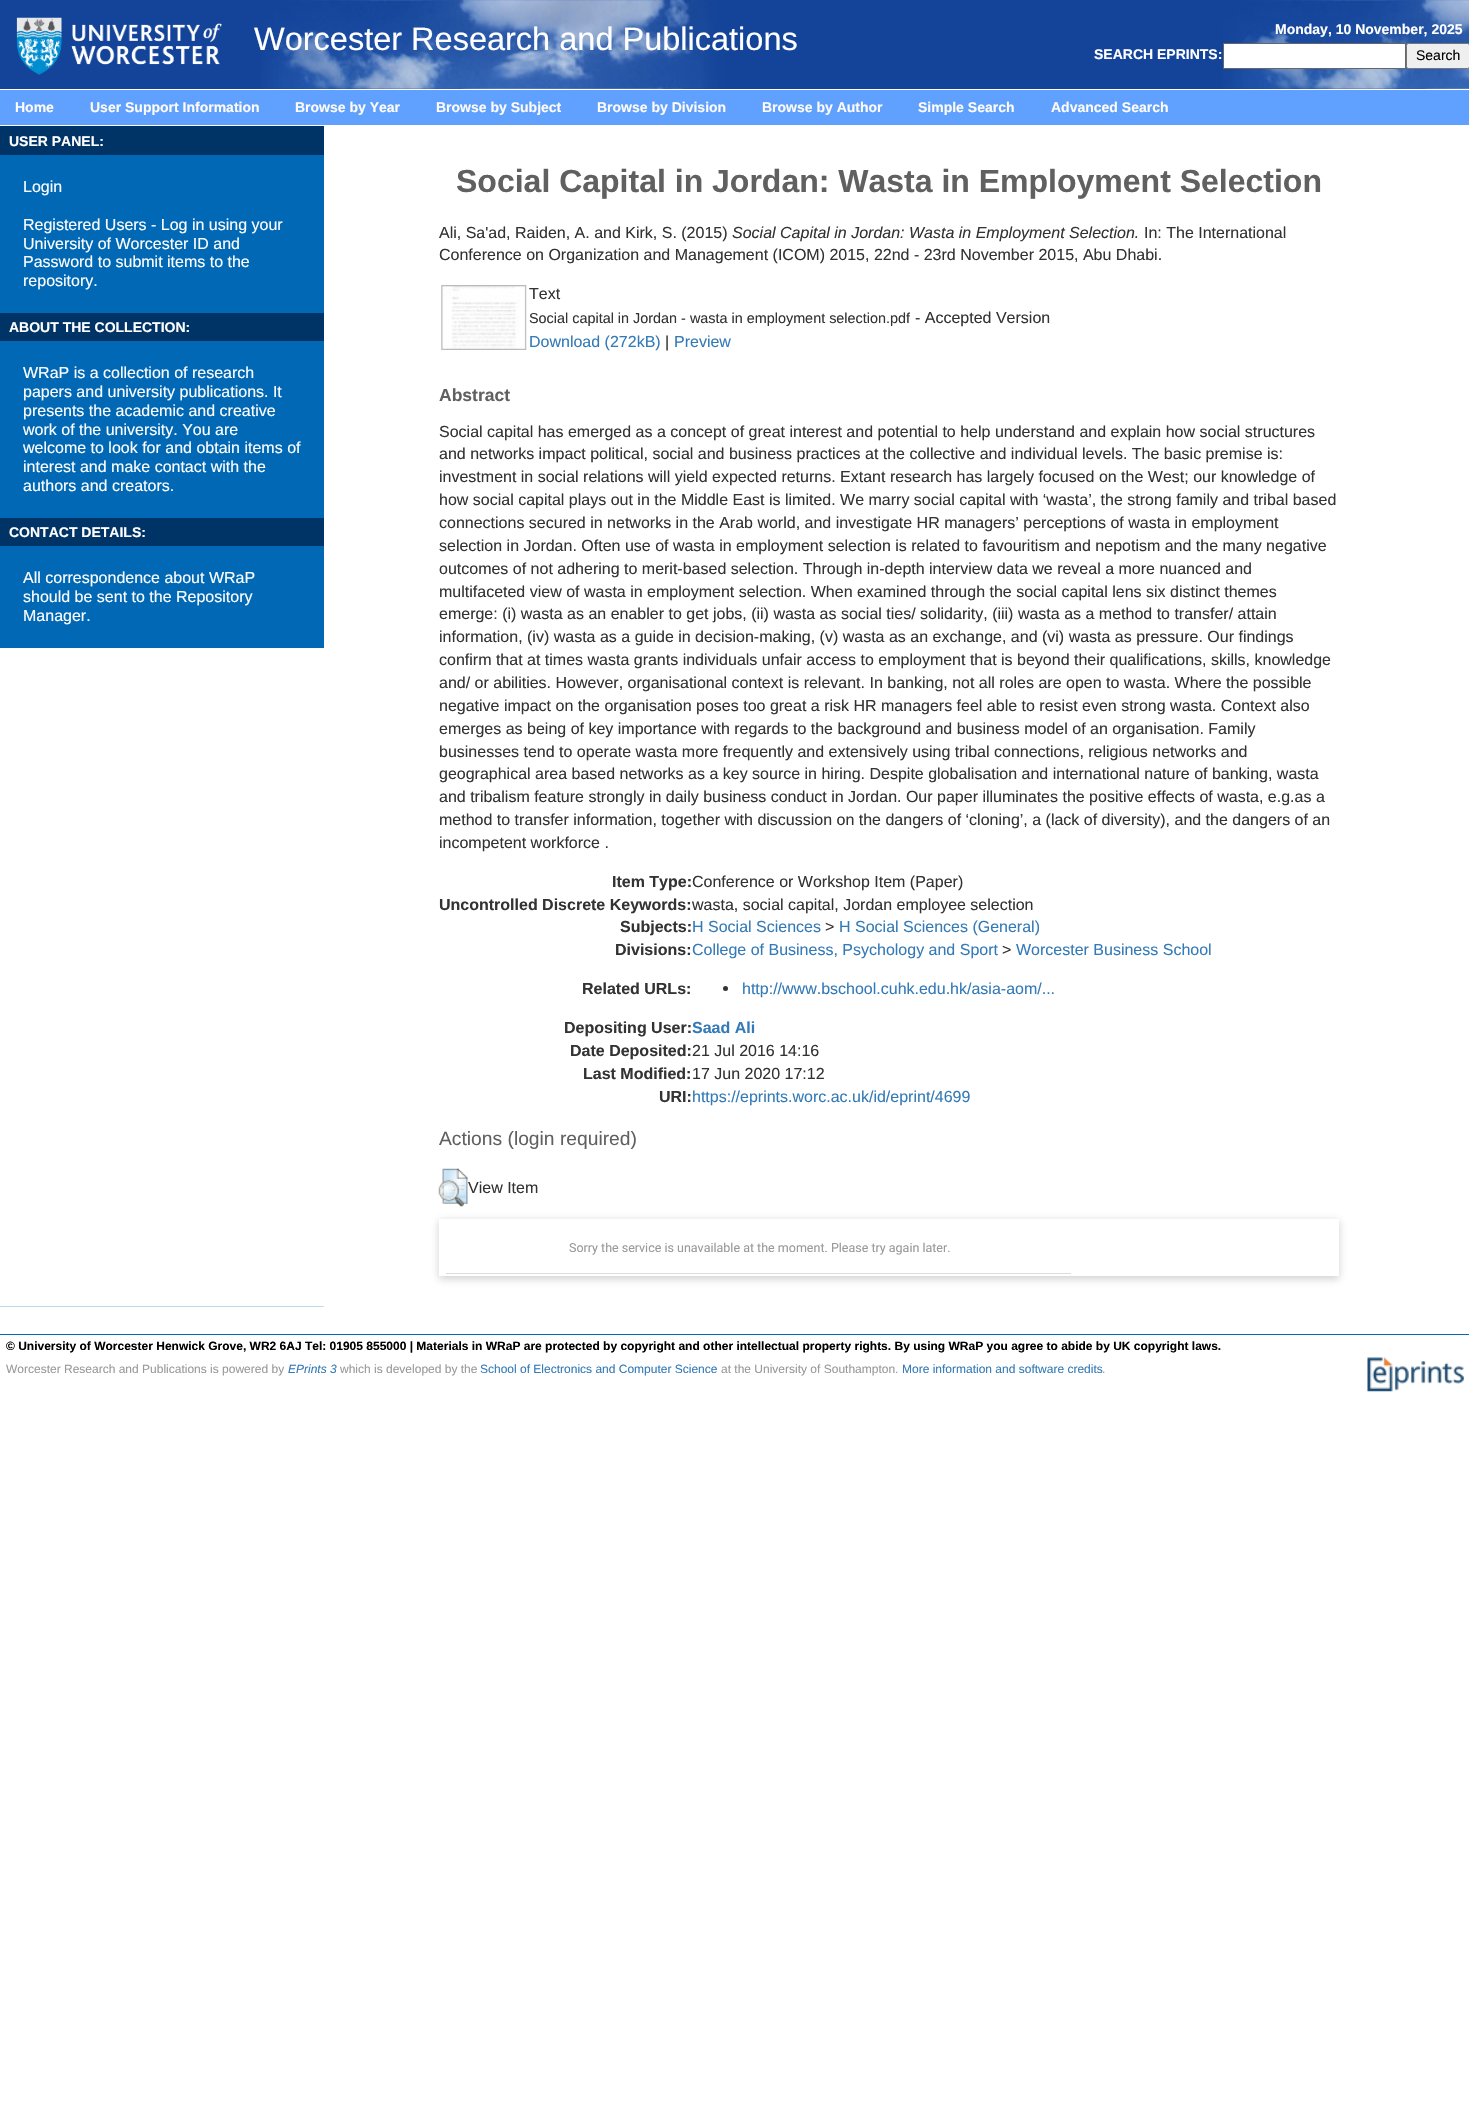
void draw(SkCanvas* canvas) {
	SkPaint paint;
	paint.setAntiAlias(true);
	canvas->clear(0xffffffff);
	canvas->drawImageRect(SkImages::DeferredFromEncodedData(SkData::MakeFromFileName("img1.png")), SkRect::MakeXYWH(0, 0, 1469, 89), SkSamplingOptions());
	canvas->drawImageRect(SkImages::DeferredFromEncodedData(SkData::MakeFromFileName("img2.png")), SkRect::MakeXYWH(16, 17, 206, 58), SkSamplingOptions());
	SkFont f1(fontMgr->matchFamilyStyle("Liberation Sans", SkFontStyle::Normal()), 32.5);
	f1.setSubpixel(true);
	paint.setColor(0xffffffff);
	canvas->drawString("Worcester Research and Publications", 254, 50, f1, paint);
	SkFont f2(fontMgr->matchFamilyStyle("Liberation Sans", SkFontStyle::Bold()), 14);
	f2.setSubpixel(true);
	canvas->drawString("Monday, 10 November, 2025", 1275, 34, f2, paint);
	canvas->drawString("SEARCH EPRINTS:", 1094, 59, f2, paint);
	canvas->drawRect(SkRect::MakeXYWH(1223.5, 43.5, 182, 25), paint);
	paint.setStroke(true);
	paint.setStrokeWidth(1);
	paint.setColor(0xff666666);
	canvas->drawRect(SkRect::MakeXYWH(1223.5, 43.5, 182, 25), paint);
	paint.setStroke(false);
	paint.setColor(0xffefefef);
	canvas->drawRoundRect(SkRect::MakeXYWH(1406.5, 43.5, 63, 25), 2, 2, paint);
	paint.setStroke(true);
	paint.setColor(0xff767676);
	canvas->drawRoundRect(SkRect::MakeXYWH(1406.5, 43.5, 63, 25), 2, 2, paint);
	SkFont f3(fontMgr->matchFamilyStyle("Liberation Sans", SkFontStyle::Normal()), 14);
	f3.setSubpixel(true);
	paint.setStroke(false);
	paint.setColor(0xff000000);
	canvas->drawString("Search", 1416, 60, f3, paint);
	paint.setColor(0xff60a0ff);
	canvas->drawRect(SkRect::MakeXYWH(0, 90, 1469, 35), paint);
	paint.setColor(0xfffefbf4);
	canvas->drawString("Home", 15, 112, f2, paint);
	canvas->drawString("User Support Information", 90, 112, f2, paint);
	canvas->drawString("Browse by Year", 295, 112, f2, paint);
	canvas->drawString("Browse by Subject", 436, 112, f2, paint);
	canvas->drawString("Browse by Division", 597, 112, f2, paint);
	canvas->drawString("Browse by Author", 762, 112, f2, paint);
	canvas->drawString("Simple Search", 918, 112, f2, paint);
	canvas->drawString("Advanced Search", 1051, 112, f2, paint);
	paint.setColor(0xff003366);
	canvas->drawRect(SkRect::MakeXYWH(0, 126, 324, 29), paint);
	paint.setColor(0xffffffff);
	canvas->drawString("USER PANEL:", 9, 146, f2, paint);
	paint.setColor(0xff0068b4);
	canvas->drawRect(SkRect::MakeXYWH(0, 155, 324, 158), paint);
	SkFont f4(fontMgr->matchFamilyStyle("Liberation Sans", SkFontStyle::Normal()), 16);
	f4.setSubpixel(true);
	paint.setColor(0xffffffff);
	canvas->drawString("Login", 23, 192, f4, paint);
	canvas->drawString("Registered Users - Log in using your", 23, 230, f4, paint);
	canvas->drawString("University of Worcester ID and", 23, 249, f4, paint);
	canvas->drawString("Password to submit items to the", 23, 267, f4, paint);
	canvas->drawString("repository.", 23, 286, f4, paint);
	paint.setColor(0xff003366);
	canvas->drawRect(SkRect::MakeXYWH(0, 313, 324, 28), paint);
	paint.setColor(0xffffffff);
	canvas->drawString("ABOUT THE COLLECTION:", 9, 332, f2, paint);
	paint.setColor(0xff0068b4);
	canvas->drawRect(SkRect::MakeXYWH(0, 341, 324, 177), paint);
	paint.setColor(0xffffffff);
	canvas->drawString("WRaP is a collection of research", 23, 378, f4, paint);
	canvas->drawString("papers and university publications. It", 23, 397, f4, paint);
	canvas->drawString("presents the academic and creative", 23, 416, f4, paint);
	canvas->drawString("work of the university. You are", 23, 435, f4, paint);
	canvas->drawString("welcome to look for and obtain items of", 23, 453, f4, paint);
	canvas->drawString("interest and make contact with the", 23, 472, f4, paint);
	canvas->drawString("authors and creators.", 23, 491, f4, paint);
	paint.setColor(0xff003366);
	canvas->drawRect(SkRect::MakeXYWH(0, 518, 324, 28), paint);
	paint.setColor(0xffffffff);
	canvas->drawString("CONTACT DETAILS:", 9, 537, f2, paint);
	paint.setColor(0xff0068b4);
	canvas->drawRect(SkRect::MakeXYWH(0, 546, 324, 102), paint);
	paint.setColor(0xffffffff);
	canvas->drawString("All correspondence about WRaP", 23, 583, f4, paint);
	canvas->drawString("should be sent to the Repository", 23, 602, f4, paint);
	canvas->drawString("Manager.", 23, 621, f4, paint);
	SkFont f5(fontMgr->matchFamilyStyle("Liberation Sans", SkFontStyle::Bold()), 32);
	f5.setSubpixel(true);
	paint.setColor(0xff606060);
	canvas->drawString("Social Capital in Jordan: Wasta in Employment Selection", 456, 192, f5, paint);
	paint.setColor(0xff333333);
	canvas->drawString("Ali, Sa'ad, Raiden, A. and Kirk, S. (2015)", 439, 238, f4, paint);
	SkFont f6(fontMgr->matchFamilyStyle("Liberation Sans", SkFontStyle::Italic()), 16);
	f6.setSubpixel(true);
	canvas->drawString("Social Capital in Jordan: Wasta in Employment Selection.", 732, 238, f6, paint);
	canvas->drawString("In: The International", 1144, 238, f4, paint);
	canvas->drawString("Conference on Organization and Management (ICOM) 2015, 22nd - 23rd November 2015, Abu Dhabi.", 439, 260, f4, paint);
	canvas->drawImageRect(SkImages::DeferredFromEncodedData(SkData::MakeFromFileName("img3.png")), SkRect::MakeXYWH(441, 285, 86, 65), SkSamplingOptions());
	canvas->drawString("Text", 529, 299, f4, paint);
	SkFont f7(fontMgr->matchFamilyStyle("Liberation Sans", SkFontStyle::Normal()), 14.4);
	f7.setSubpixel(true);
	canvas->drawString("Social capital in Jordan - wasta in employment selection.pdf", 529, 323, f7, paint);
	canvas->drawString("- Accepted Version", 915, 323, f4, paint);
	paint.setColor(0xff337ab7);
	canvas->drawString("Download (272kB)", 529, 347, f4, paint);
	paint.setColor(0xff333333);
	canvas->drawString("|", 665, 347, f4, paint);
	paint.setColor(0xff337ab7);
	canvas->drawString("Preview", 674, 347, f4, paint);
	SkFont f8(fontMgr->matchFamilyStyle("Liberation Sans", SkFontStyle::Bold()), 17.5);
	f8.setSubpixel(true);
	paint.setColor(0xff606060);
	canvas->drawString("Abstract", 439, 401, f8, paint);
	paint.setColor(0xff333333);
	canvas->drawString("Social capital has emerged as a concept of great interest and potential to help understand and explain how social structures", 439, 437, f4, paint);
	canvas->drawString("and networks impact political, social and business practices at the collective and individual levels. The basic premise is:", 439, 459, f4, paint);
	canvas->drawString("investment in social relations will yield expected returns. Extant research has largely focused on the West; our knowledge of", 439, 482, f4, paint);
	canvas->drawString("how social capital plays out in the Middle East is limited. We marry social capital with ‘wasta’, the strong family and tribal based", 439, 505, f4, paint);
	canvas->drawString("connections secured in networks in the Arab world, and investigate HR managers’ perceptions of wasta in employment", 439, 528, f4, paint);
	canvas->drawString("selection in Jordan. Often use of wasta in employment selection is related to favouritism and nepotism and the many negative", 439, 551, f4, paint);
	canvas->drawString("outcomes of not adhering to merit-based selection. Through in-depth interview data we reveal a more nuanced and", 439, 574, f4, paint);
	canvas->drawString("multifaceted view of wasta in employment selection. When examined through the social capital lens six distinct themes", 439, 597, f4, paint);
	canvas->drawString("emerge: (i) wasta as an enabler to get jobs, (ii) wasta as social ties/ solidarity, (iii) wasta as a method to transfer/ attain", 439, 619, f4, paint);
	canvas->drawString("information, (iv) wasta as a guide in decision-making, (v) wasta as an exchange, and (vi) wasta as pressure. Our findings", 439, 642, f4, paint);
	canvas->drawString("confirm that at times wasta grants individuals unfair access to employment that is beyond their qualifications, skills, knowledge", 439, 665, f4, paint);
	canvas->drawString("and/ or abilities. However, organisational context is relevant. In banking, not all roles are open to wasta. Where the possible", 439, 688, f4, paint);
	canvas->drawString("negative impact on the organisation poses too great a risk HR managers feel able to resist even strong wasta. Context also", 439, 711, f4, paint);
	canvas->drawString("emerges as being of key importance with regards to the background and business model of an organisation. Family", 439, 734, f4, paint);
	canvas->drawString("businesses tend to operate wasta more frequently and extensively using tribal connections, religious networks and", 439, 757, f4, paint);
	canvas->drawString("geographical area based networks as a key source in hiring. Despite globalisation and international nature of banking, wasta", 439, 779, f4, paint);
	canvas->drawString("and tribalism feature strongly in daily business conduct in Jordan. Our paper illuminates the positive effects of wasta, e.g.as a", 439, 802, f4, paint);
	canvas->drawString("method to transfer information, together with discussion on the dangers of ‘cloning’, a (lack of diversity), and the dangers of an", 439, 825, f4, paint);
	canvas->drawString("incompetent workforce .", 439, 848, f4, paint);
	SkFont f9(fontMgr->matchFamilyStyle("Liberation Sans", SkFontStyle::Bold()), 16);
	f9.setSubpixel(true);
	canvas->drawString("Item Type:", 612, 887, f9, paint);
	canvas->drawString("Conference or Workshop Item (Paper)", 692, 887, f4, paint);
	canvas->drawString("Uncontrolled Discrete Keywords:", 439, 910, f9, paint);
	canvas->drawString("wasta, social capital, Jordan employee selection", 692, 910, f4, paint);
	canvas->drawString("Subjects:", 620, 932, f9, paint);
	paint.setColor(0xff337ab7);
	canvas->drawString("H Social Sciences", 692, 932, f4, paint);
	paint.setColor(0xff333333);
	canvas->drawString(">", 825, 932, f4, paint);
	paint.setColor(0xff337ab7);
	canvas->drawString("H Social Sciences (General)", 839, 932, f4, paint);
	paint.setColor(0xff333333);
	canvas->drawString("Divisions:", 615, 955, f9, paint);
	paint.setColor(0xff337ab7);
	canvas->drawString("College of Business, Psychology and Sport", 692, 955, f4, paint);
	paint.setColor(0xff333333);
	canvas->drawString(">", 1002, 955, f4, paint);
	paint.setColor(0xff337ab7);
	canvas->drawString("Worcester Business School", 1016, 955, f4, paint);
	paint.setColor(0xff333333);
	canvas->drawString("Related URLs:", 582, 994, f9, paint);
	canvas->drawCircle(725.5, 988.5, 2.5, paint);
	paint.setColor(0xff337ab7);
	canvas->drawString("http://www.bschool.cuhk.edu.hk/asia-aom/...", 742, 994, f4, paint);
	paint.setColor(0xff333333);
	canvas->drawString("Depositing User:", 564, 1033, f9, paint);
	paint.setColor(0xff337ab7);
	canvas->drawString("Saad Ali", 692, 1033, f9, paint);
	paint.setColor(0xff333333);
	canvas->drawString("Date Deposited:", 570, 1056, f9, paint);
	canvas->drawString("21 Jul 2016 14:16", 692, 1056, f4, paint);
	canvas->drawString("Last Modified:", 583, 1079, f9, paint);
	canvas->drawString("17 Jun 2020 17:12", 692, 1079, f4, paint);
	canvas->drawString("URI:", 659, 1102, f9, paint);
	paint.setColor(0xff337ab7);
	canvas->drawString("https://eprints.worc.ac.uk/id/eprint/4699", 692, 1102, f4, paint);
	SkFont f10(fontMgr->matchFamilyStyle("Liberation Sans", SkFontStyle::Normal()), 19.25);
	f10.setSubpixel(true);
	paint.setColor(0xff606060);
	canvas->drawString("Actions (login required)", 439, 1145, f10, paint);
	canvas->drawImageRect(SkImages::DeferredFromEncodedData(SkData::MakeFromFileName("img4.png")), SkRect::MakeXYWH(438, 1168, 30, 39), SkSamplingOptions());
	paint.setColor(0xff333333);
	canvas->drawString("View Item", 468, 1193, f4, paint);
	paint.setColor(0x4d646464);
	paint.setMaskFilter(SkMaskFilter::MakeBlur(kNormal_SkBlurStyle, 4));
	canvas->drawRect(SkRect::MakeXYWH(439, 1221, 900, 58), paint);
	paint.setMaskFilter(nullptr);
	paint.setColor(0xffffffff);
	canvas->drawRect(SkRect::MakeXYWH(439, 1219, 900, 57), paint);
	paint.setColor(0xffdddddd);
	canvas->drawRect(SkRect::MakeXYWH(446, 1273, 625, 1), paint);
	SkFont f11(fontMgr->matchFamilyStyle("Roboto", SkFontStyle::Normal()), 12.5);
	f11.setSubpixel(true);
	paint.setColor(0xff999999);
	canvas->drawString("Sorry the service is unavailable at the moment. Please try again later.", 569, 1252, f11, paint);
	canvas->drawImageRect(SkImages::DeferredFromEncodedData(SkData::MakeFromFileName("img5.png")), SkRect::MakeXYWH(0, 1306, 324, 1), SkSamplingOptions());
	paint.setColor(0xff0068b4);
	canvas->drawRect(SkRect::MakeXYWH(0, 1334, 1469, 1), paint);
	SkFont f12(fontMgr->matchFamilyStyle("Liberation Sans", SkFontStyle::Bold()), 12);
	f12.setSubpixel(true);
	paint.setColor(0xff000000);
	canvas->drawString("© University of Worcester Henwick Grove, WR2 6AJ Tel: 01905 855000 | Materials in WRaP are protected by copyright and other intellectual property rights. By using WRaP you agree to abide by UK copyright laws.", 6, 1350, f12, paint);
	SkFont f13(fontMgr->matchFamilyStyle("Liberation Sans", SkFontStyle::Normal()), 12);
	f13.setSubpixel(true);
	paint.setColor(0xff999999);
	canvas->drawString("Worcester Research and Publications is powered by", 6, 1373, f13, paint);
	SkFont f14(fontMgr->matchFamilyStyle("Liberation Sans", SkFontStyle::Italic()), 12);
	f14.setSubpixel(true);
	paint.setColor(0xff337ab7);
	canvas->drawString("EPrints 3", 288, 1373, f14, paint);
	paint.setColor(0xff999999);
	canvas->drawString("which is developed by the", 340, 1373, f13, paint);
	paint.setColor(0xff337ab7);
	canvas->drawString("School of Electronics and Computer Science", 480, 1373, f13, paint);
	paint.setColor(0xff999999);
	canvas->drawString("at the University of Southampton.", 721, 1373, f13, paint);
	paint.setColor(0xff337ab7);
	canvas->drawString("More information and software credits", 902, 1373, f13, paint);
	paint.setColor(0xff999999);
	canvas->drawString(".", 1102, 1373, f13, paint);
	canvas->drawImageRect(SkImages::DeferredFromEncodedData(SkData::MakeFromFileName("img6.png")), SkRect::MakeXYWH(1367, 1357, 97, 35), SkSamplingOptions());
}
